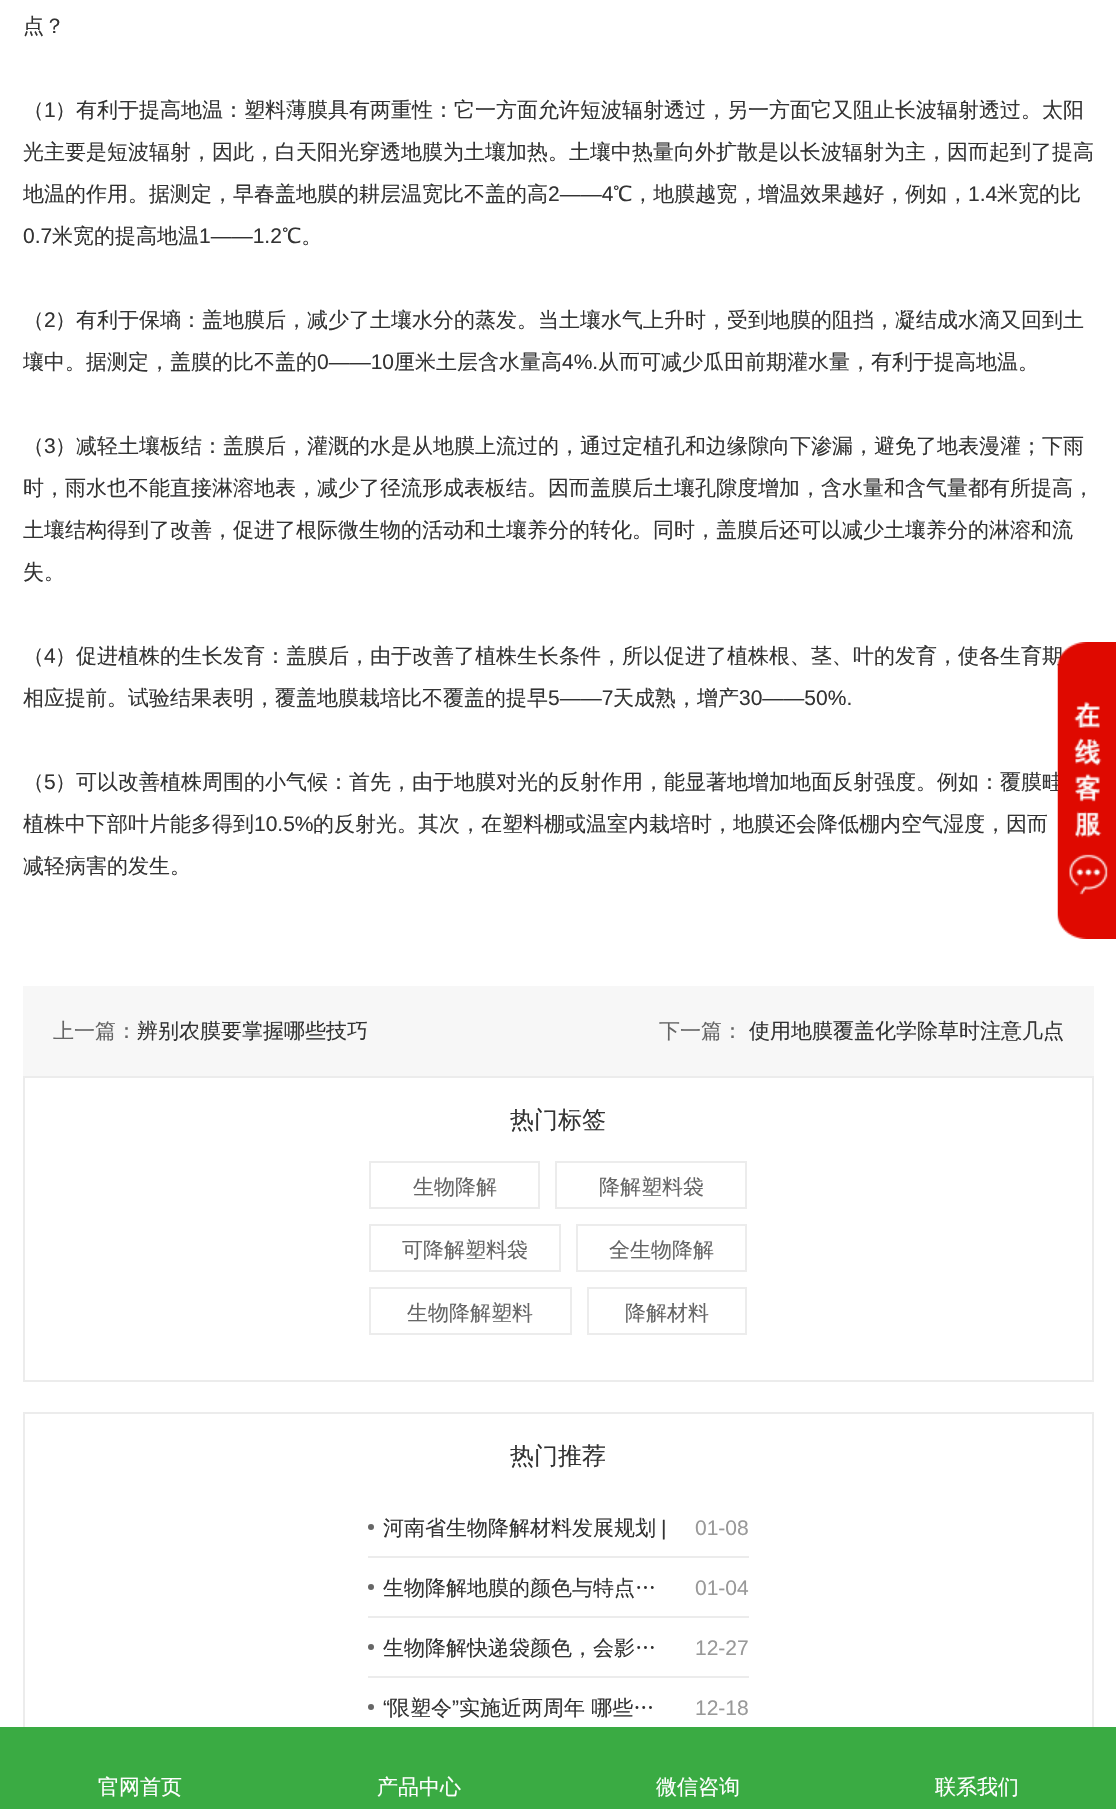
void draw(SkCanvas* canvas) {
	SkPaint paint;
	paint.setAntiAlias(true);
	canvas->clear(0xffffffff);
	SkFont f1(fontMgr->matchFamilyStyle("WenQuanYi Zen Hei", SkFontStyle(500, SkFontStyle::kNormal_Width, SkFontStyle::kUpright_Slant)), 21);
	f1.setSubpixel(true);
	paint.setColor(0xff333333);
	canvas->drawString("点？", 23, 33, f1, paint);
	canvas->drawString("（", 23, 117, f1, paint);
	SkFont f2(fontMgr->matchFamilyStyle("Liberation Sans", SkFontStyle::Normal()), 21);
	f2.setSubpixel(true);
	canvas->drawString("1", 44, 117, f2, paint);
	canvas->drawString("）有利于提高地温：塑料薄膜具有两重性：它一方面允许短波辐射透过，另一方面它又阻止长波辐射透过。太阳", 55, 117, f1, paint);
	canvas->drawString("光主要是短波辐射，因此，白天阳光穿透地膜为土壤加热。土壤中热量向外扩散是以长波辐射为主，因而起到了提高", 23, 159, f1, paint);
	canvas->save();
	canvas->clipRect(SkRect::MakeXYWH(23, 0, 1071, 986));
	canvas->drawString("地温的作用。据测定，早春盖地膜的耕层温宽比不盖的高", 23, 201, f1, paint);
	canvas->restore();
	canvas->drawString("2——4", 548, 201, f2, paint);
	canvas->drawString("℃，地膜越宽，增温效果越好，例如，", 613, 201, f1, paint);
	canvas->drawString("1.4", 968, 201, f2, paint);
	canvas->drawString("米宽的比", 997, 201, f1, paint);
	canvas->drawString("0.7", 23, 243, f2, paint);
	canvas->drawString("米宽的提高地温", 52, 243, f1, paint);
	canvas->drawString("1——1.2", 199, 243, f2, paint);
	canvas->drawString("℃。", 282, 243, f1, paint);
	canvas->drawString("（", 23, 327, f1, paint);
	canvas->drawString("2", 44, 327, f2, paint);
	canvas->drawString("）有利于保墒：盖地膜后，减少了土壤水分的蒸发。当土壤水气上升时，受到地膜的阻挡，凝结成水滴又回到土", 55, 327, f1, paint);
	canvas->save();
	canvas->clipRect(SkRect::MakeXYWH(23, 0, 1071, 986));
	canvas->drawString("壤中。据测定，盖膜的比不盖的", 23, 369, f1, paint);
	canvas->restore();
	canvas->drawString("0——10", 317, 369, f2, paint);
	canvas->drawString("厘米土层含水量高", 394, 369, f1, paint);
	canvas->drawString("4%.", 562, 369, f2, paint);
	canvas->drawString("从而可减少瓜田前期灌水量，有利于提高地温。", 598, 369, f1, paint);
	canvas->drawString("（", 23, 453, f1, paint);
	canvas->drawString("3", 44, 453, f2, paint);
	canvas->drawString("）减轻土壤板结：盖膜后，灌溉的水是从地膜上流过的，通过定植孔和边缘隙向下渗漏，避免了地表漫灌；下雨", 55, 453, f1, paint);
	canvas->drawString("时，雨水也不能直接淋溶地表，减少了径流形成表板结。因而盖膜后土壤孔隙度增加，含水量和含气量都有所提高，", 23, 495, f1, paint);
	canvas->drawString("土壤结构得到了改善，促进了根际微生物的活动和土壤养分的转化。同时，盖膜后还可以减少土壤养分的淋溶和流", 23, 537, f1, paint);
	canvas->drawString("失。", 23, 579, f1, paint);
	canvas->drawString("（", 23, 663, f1, paint);
	canvas->drawString("4", 44, 663, f2, paint);
	canvas->drawString("）促进植株的生长发育：盖膜后，由于改善了植株生长条件，所以促进了植株根、茎、叶的发育，使各生育期", 55, 663, f1, paint);
	canvas->drawString("相应提前。试验结果表明，覆盖地膜栽培比不覆盖的提早", 23, 705, f1, paint);
	canvas->drawString("5——7", 548, 705, f2, paint);
	canvas->drawString("天成熟，增产", 613, 705, f1, paint);
	canvas->drawString("30——50%.", 739, 705, f2, paint);
	canvas->drawString("（", 23, 789, f1, paint);
	canvas->drawString("5", 44, 789, f2, paint);
	canvas->drawString("）可以改善植株周围的小气候：首先，由于地膜对光的反射作用，能显著地增加地面反射强度。例如：覆膜畦", 55, 789, f1, paint);
	canvas->drawString("植株中下部叶片能多得到", 23, 831, f1, paint);
	canvas->drawString("10.5%", 254, 831, f2, paint);
	canvas->drawString("的反射光。其次，在塑料棚或温室内栽培时，地膜还会降低棚内空气湿度，因而", 313, 831, f1, paint);
	canvas->drawString("减轻病害的发生。", 23, 873, f1, paint);
	paint.setColor(0xfff7f7f7);
	canvas->drawRect(SkRect::MakeXYWH(23, 986, 1071, 90), paint);
	paint.setColor(0xff666666);
	canvas->drawString("上一篇：", 53, 1038, f1, paint);
	paint.setColor(0xff333333);
	canvas->drawString("辨别农膜要掌握哪些技巧", 137, 1038, f1, paint);
	paint.setColor(0xff666666);
	canvas->drawString("下一篇：", 659, 1038, f1, paint);
	paint.setColor(0xff333333);
	canvas->drawString("使用地膜覆盖化学除草时注意几点", 749, 1038, f1, paint);
	paint.setStroke(true);
	paint.setStrokeWidth(2);
	paint.setColor(0xffececec);
	canvas->drawRect(SkRect::MakeXYWH(24, 1077, 1069, 304), paint);
	SkFont f3(fontMgr->matchFamilyStyle("WenQuanYi Zen Hei", SkFontStyle(500, SkFontStyle::kNormal_Width, SkFontStyle::kUpright_Slant)), 24);
	f3.setSubpixel(true);
	paint.setStroke(false);
	paint.setColor(0xff333333);
	canvas->drawString("热门标签", 510, 1128, f3, paint);
	paint.setStroke(true);
	paint.setColor(0xffececec);
	canvas->drawRect(SkRect::MakeXYWH(370, 1162, 169, 46), paint);
	paint.setStroke(false);
	paint.setColor(0xff666666);
	canvas->drawString("生物降解", 413, 1194, f1, paint);
	paint.setStroke(true);
	paint.setColor(0xffececec);
	canvas->drawRect(SkRect::MakeXYWH(556, 1162, 190, 46), paint);
	paint.setStroke(false);
	paint.setColor(0xff666666);
	canvas->drawString("降解塑料袋", 599, 1194, f1, paint);
	paint.setStroke(true);
	paint.setColor(0xffececec);
	canvas->drawRect(SkRect::MakeXYWH(370, 1225, 190, 46), paint);
	paint.setStroke(false);
	paint.setColor(0xff666666);
	canvas->drawString("可降解塑料袋", 402, 1257, f1, paint);
	paint.setStroke(true);
	paint.setColor(0xffececec);
	canvas->drawRect(SkRect::MakeXYWH(577, 1225, 169, 46), paint);
	paint.setStroke(false);
	paint.setColor(0xff666666);
	canvas->drawString("全生物降解", 609, 1257, f1, paint);
	paint.setStroke(true);
	paint.setColor(0xffececec);
	canvas->drawRect(SkRect::MakeXYWH(370, 1288, 201, 46), paint);
	paint.setStroke(false);
	paint.setColor(0xff666666);
	canvas->drawString("生物降解塑料", 407, 1320, f1, paint);
	paint.setStroke(true);
	paint.setColor(0xffececec);
	canvas->drawRect(SkRect::MakeXYWH(588, 1288, 158, 46), paint);
	paint.setStroke(false);
	paint.setColor(0xff666666);
	canvas->drawString("降解材料", 625, 1320, f1, paint);
	paint.setStroke(true);
	paint.setColor(0xffececec);
	canvas->drawRect(SkRect::MakeXYWH(24, 1413, 1069, 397), paint);
	paint.setStroke(false);
	paint.setColor(0xff333333);
	canvas->drawString("热门推荐", 510, 1464, f3, paint);
	paint.setColor(0xffececec);
	canvas->drawRect(SkRect::MakeXYWH(368, 1556, 381, 2), paint);
	paint.setColor(0xff666666);
	canvas->drawCircle(371, 1527, 3, paint);
	paint.setColor(0xff333333);
	canvas->drawString("河南省生物降解材料发展规划", 383, 1535, f1, paint);
	canvas->drawString("|", 661, 1535, f2, paint);
	paint.setColor(0xff999999);
	canvas->drawString("01-08", 695, 1535, f2, paint);
	paint.setColor(0xffececec);
	canvas->drawRect(SkRect::MakeXYWH(368, 1616, 381, 2), paint);
	paint.setColor(0xff666666);
	canvas->drawCircle(371, 1587, 3, paint);
	paint.setColor(0xff333333);
	canvas->drawString("生物降解地膜的颜色与特点…", 383, 1595, f1, paint);
	paint.setColor(0xff999999);
	canvas->drawString("01-04", 695, 1595, f2, paint);
	paint.setColor(0xffececec);
	canvas->drawRect(SkRect::MakeXYWH(368, 1676, 381, 2), paint);
	paint.setColor(0xff666666);
	canvas->drawCircle(371, 1647, 3, paint);
	paint.setColor(0xff333333);
	canvas->drawString("生物降解快递袋颜色，会影…", 383, 1655, f1, paint);
	paint.setColor(0xff999999);
	canvas->drawString("12-27", 695, 1655, f2, paint);
	paint.setColor(0xff666666);
	canvas->drawCircle(371, 1707, 3, paint);
	paint.setColor(0xff333333);
	canvas->drawString("“", 383, 1715, f2, paint);
	canvas->drawString("限塑令", 389, 1715, f1, paint);
	canvas->drawString("”", 452, 1715, f2, paint);
	canvas->drawString("实施近两周年 哪些…", 459, 1715, f1, paint);
	paint.setColor(0xff999999);
	canvas->drawString("12-18", 695, 1715, f2, paint);
	canvas->drawImageRect(SkImages::DeferredFromEncodedData(SkData::MakeFromFileName("img1.png")), SkRect::MakeXYWH(1057, 642, 59, 297), SkSamplingOptions());
	paint.setColor(0xff3aab43);
	canvas->drawRect(SkRect::MakeXYWH(0, 1727, 1116, 82), paint);
	paint.setColor(0xffffffff);
	canvas->drawString("官网首页", 98, 1794, f1, paint);
	canvas->drawString("产品中心", 377, 1794, f1, paint);
	canvas->drawString("微信咨询", 656, 1794, f1, paint);
	canvas->drawString("联系我们", 935, 1794, f1, paint);
}
